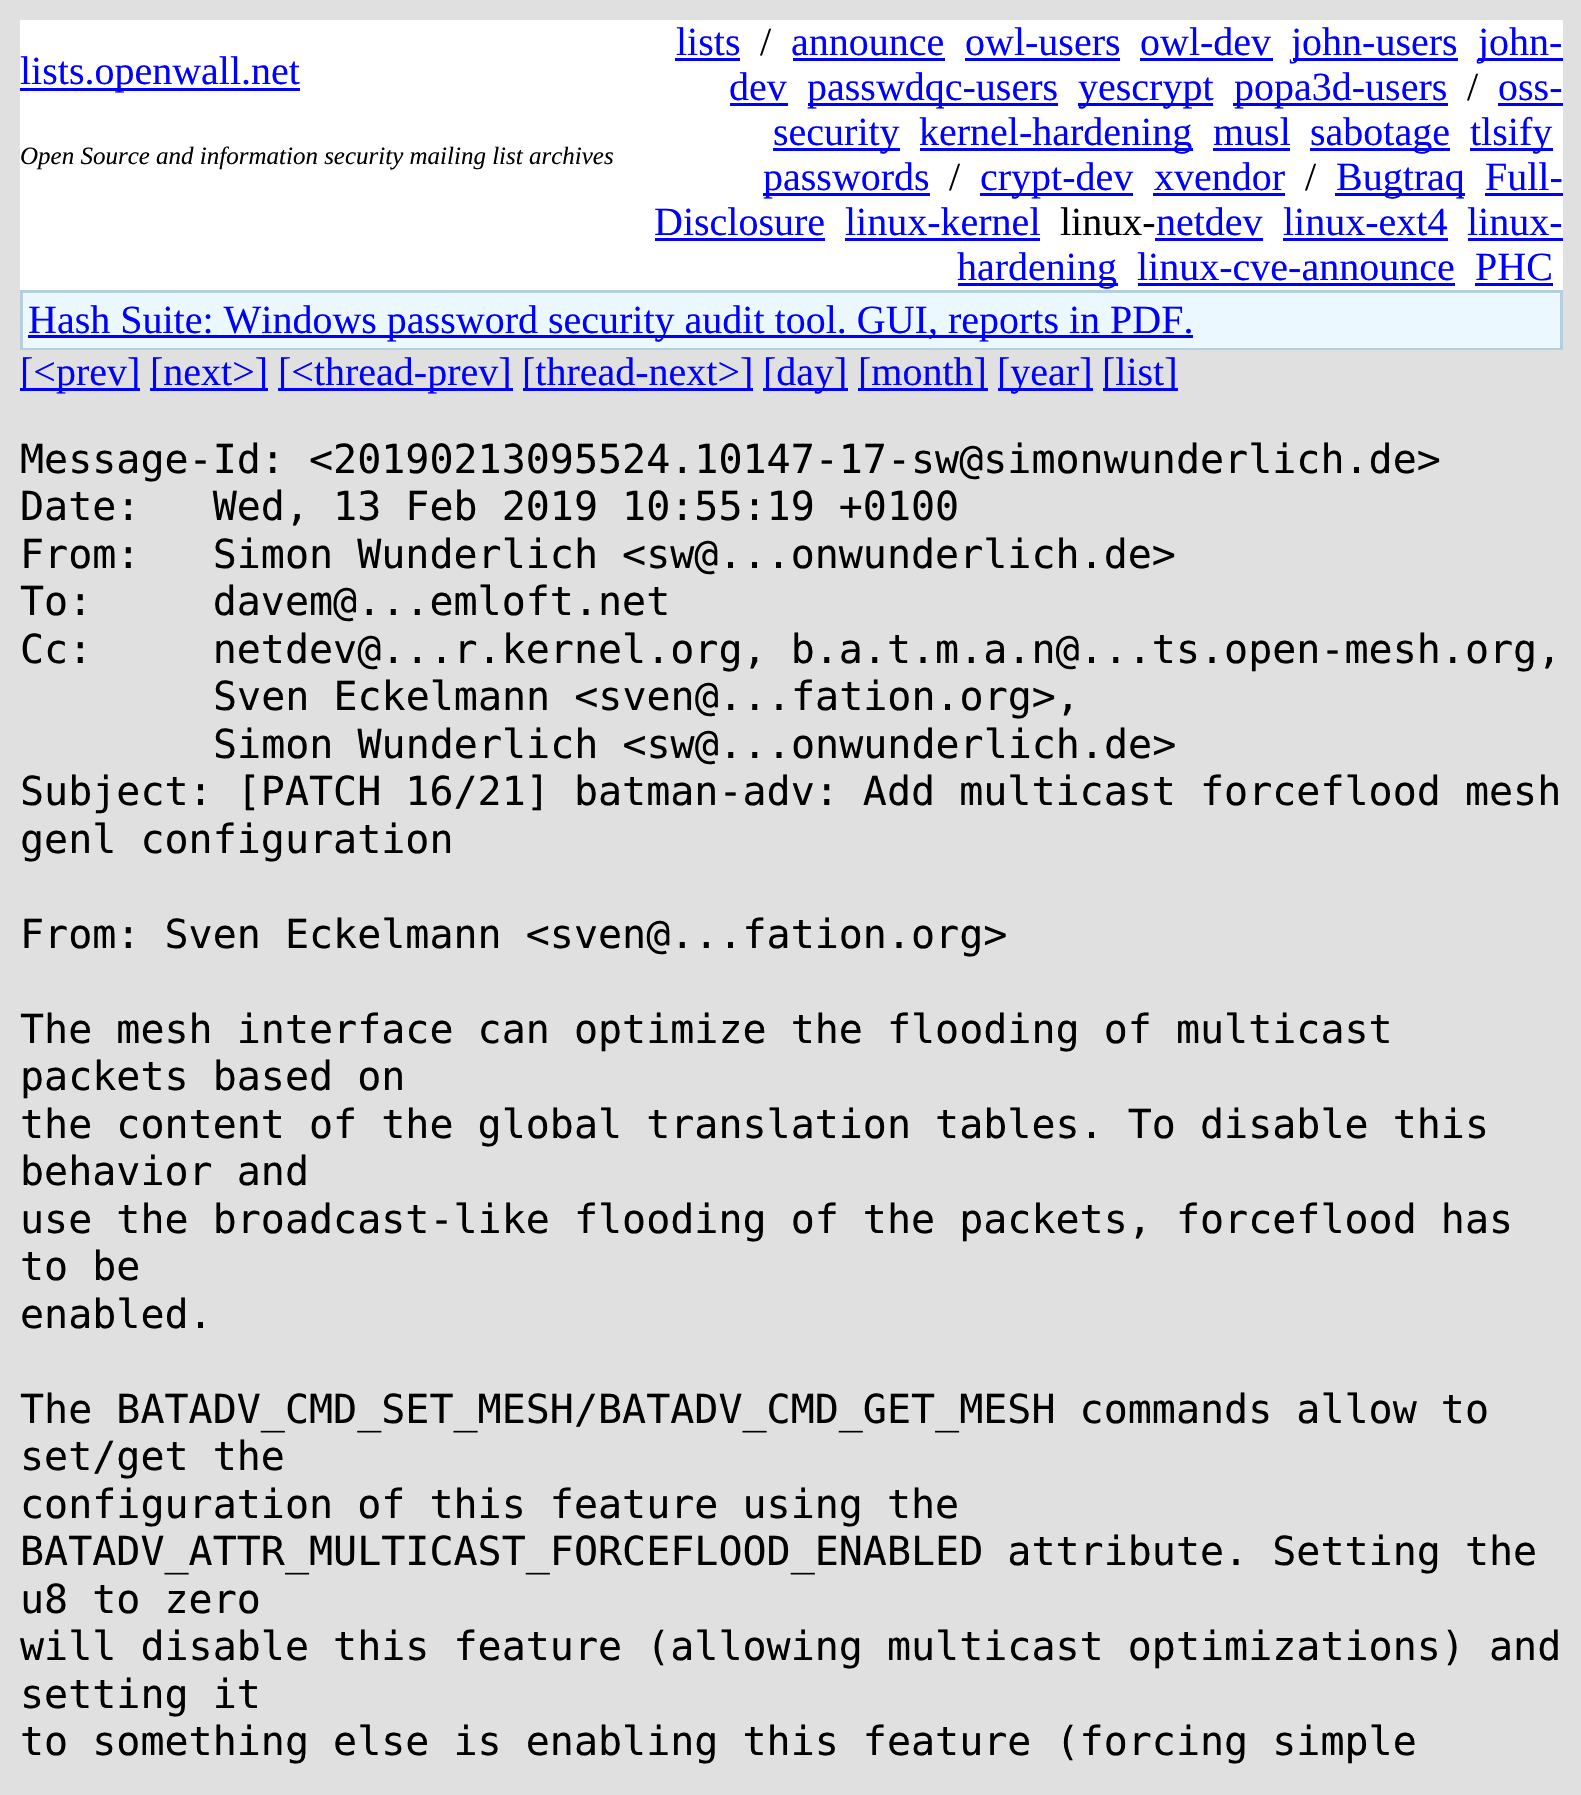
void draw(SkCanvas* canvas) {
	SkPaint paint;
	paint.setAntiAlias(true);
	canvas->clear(0xffe0e0e0);
	paint.setColor(0xffffffff);
	canvas->drawRect(SkRect::MakeXYWH(20, 20, 1543, 270), paint);
	paint.setColor(0xff0000ff);
	canvas->drawRect(SkRect::MakeXYWH(20, 88, 280, 3), paint);
	SkFont f1(fontMgr->matchFamilyStyle("Liberation Serif", SkFontStyle::Normal()), 40);
	f1.setSubpixel(true);
	canvas->drawString("lists.openwall.net", 20, 84, f1, paint);
	canvas->drawString("lists", 676, 55, f1, paint);
	canvas->drawRect(SkRect::MakeXYWH(675, 58, 65, 3), paint);
	paint.setColor(0xff000000);
	canvas->drawString("/", 760, 55, f1, paint);
	paint.setColor(0xff0000ff);
	canvas->drawString("announce", 791, 55, f1, paint);
	canvas->drawRect(SkRect::MakeXYWH(793, 58, 152, 3), paint);
	canvas->drawString("owl-users", 965, 55, f1, paint);
	canvas->drawRect(SkRect::MakeXYWH(965, 58, 155, 3), paint);
	canvas->drawString("owl-dev", 1140, 55, f1, paint);
	canvas->drawRect(SkRect::MakeXYWH(1140, 58, 133, 3), paint);
	canvas->drawRect(SkRect::MakeXYWH(1293, 58, 165, 3), paint);
	canvas->drawString("john-users", 1291, 55, f1, paint);
	canvas->drawRect(SkRect::MakeXYWH(1478, 58, 85, 3), paint);
	canvas->drawString("john-", 1478, 55, f1, paint);
	canvas->drawString("dev", 729, 100, f1, paint);
	canvas->drawRect(SkRect::MakeXYWH(730, 103, 58, 3), paint);
	canvas->drawRect(SkRect::MakeXYWH(808, 103, 250, 3), paint);
	canvas->drawString("passwdqc-users", 807, 100, f1, paint);
	canvas->drawRect(SkRect::MakeXYWH(1078, 103, 135, 3), paint);
	canvas->drawString("yescrypt", 1078, 100, f1, paint);
	canvas->drawRect(SkRect::MakeXYWH(1233, 103, 215, 3), paint);
	canvas->drawString("popa3d-users", 1234, 100, f1, paint);
	paint.setColor(0xff000000);
	canvas->drawString("/", 1467, 100, f1, paint);
	paint.setColor(0xff0000ff);
	canvas->drawString("oss-", 1498, 100, f1, paint);
	canvas->drawRect(SkRect::MakeXYWH(1498, 103, 65, 3), paint);
	canvas->drawRect(SkRect::MakeXYWH(773, 148, 127, 3), paint);
	canvas->drawString("security", 773, 145, f1, paint);
	canvas->drawRect(SkRect::MakeXYWH(920, 148, 273, 3), paint);
	canvas->drawString("kernel-hardening", 919, 145, f1, paint);
	canvas->drawString("musl", 1213, 145, f1, paint);
	canvas->drawRect(SkRect::MakeXYWH(1213, 148, 77, 3), paint);
	canvas->drawRect(SkRect::MakeXYWH(1310, 148, 140, 3), paint);
	canvas->drawString("sabotage", 1310, 145, f1, paint);
	canvas->drawRect(SkRect::MakeXYWH(1470, 148, 83, 3), paint);
	canvas->drawString("tlsify", 1470, 145, f1, paint);
	canvas->drawRect(SkRect::MakeXYWH(763, 193, 167, 3), paint);
	canvas->drawString("passwords", 763, 190, f1, paint);
	paint.setColor(0xff000000);
	canvas->drawString("/", 949, 190, f1, paint);
	paint.setColor(0xff0000ff);
	canvas->drawRect(SkRect::MakeXYWH(980, 193, 153, 3), paint);
	canvas->drawString("crypt-dev", 980, 190, f1, paint);
	canvas->drawString("xvendor", 1154, 190, f1, paint);
	canvas->drawRect(SkRect::MakeXYWH(1153, 193, 132, 3), paint);
	paint.setColor(0xff000000);
	canvas->drawString("/", 1305, 190, f1, paint);
	paint.setColor(0xff0000ff);
	canvas->drawRect(SkRect::MakeXYWH(1335, 193, 130, 3), paint);
	canvas->drawString("Bugtraq", 1336, 190, f1, paint);
	canvas->drawString("Full-", 1485, 190, f1, paint);
	canvas->drawRect(SkRect::MakeXYWH(1485, 193, 78, 3), paint);
	canvas->drawString("Disclosure", 654, 235, f1, paint);
	canvas->drawRect(SkRect::MakeXYWH(655, 238, 170, 3), paint);
	canvas->drawString("linux-kernel", 845, 235, f1, paint);
	canvas->drawRect(SkRect::MakeXYWH(845, 238, 195, 3), paint);
	paint.setColor(0xff000000);
	canvas->drawString("linux-", 1060, 235, f1, paint);
	paint.setColor(0xff0000ff);
	canvas->drawString("netdev", 1156, 235, f1, paint);
	canvas->drawRect(SkRect::MakeXYWH(1155, 238, 108, 3), paint);
	canvas->drawString("linux-ext4", 1283, 235, f1, paint);
	canvas->drawRect(SkRect::MakeXYWH(1283, 238, 165, 3), paint);
	canvas->drawString("linux-", 1467, 235, f1, paint);
	canvas->drawRect(SkRect::MakeXYWH(1468, 238, 95, 3), paint);
	canvas->drawRect(SkRect::MakeXYWH(958, 283, 160, 3), paint);
	canvas->drawString("hardening", 957, 280, f1, paint);
	canvas->drawString("linux-cve-announce", 1137, 280, f1, paint);
	canvas->drawRect(SkRect::MakeXYWH(1138, 283, 317, 3), paint);
	canvas->drawString("PHC", 1475, 280, f1, paint);
	canvas->drawRect(SkRect::MakeXYWH(1475, 283, 78, 3), paint);
	SkFont f2(fontMgr->matchFamilyStyle("Liberation Serif", SkFontStyle::Italic()), 25);
	f2.setSubpixel(true);
	paint.setColor(0xff000000);
	canvas->drawString("Open Source and information security mailing list archives", 20, 164, f2, paint);
	paint.setColor(0xffb4d0dc);
	canvas->drawRect(SkRect::MakeXYWH(20, 290, 1543, 60), paint);
	paint.setColor(0xffecf8ff);
	canvas->drawRect(SkRect::MakeXYWH(23, 293, 1537, 55), paint);
	paint.setColor(0xff0000ff);
	canvas->drawRect(SkRect::MakeXYWH(28, 335, 1165, 3), paint);
	canvas->drawString("Hash Suite: Windows password security audit tool. GUI, reports in PDF.", 28, 333, f1, paint);
	canvas->drawRect(SkRect::MakeXYWH(20, 388, 120, 3), paint);
	canvas->drawString("[<prev]", 20, 385, f1, paint);
	canvas->drawRect(SkRect::MakeXYWH(150, 388, 118, 3), paint);
	canvas->drawString("[next>]", 150, 385, f1, paint);
	canvas->drawRect(SkRect::MakeXYWH(278, 388, 235, 3), paint);
	canvas->drawString("[<thread-prev]", 278, 385, f1, paint);
	canvas->drawRect(SkRect::MakeXYWH(523, 388, 230, 3), paint);
	canvas->drawString("[thread-next>]", 522, 385, f1, paint);
	canvas->drawRect(SkRect::MakeXYWH(763, 388, 85, 3), paint);
	canvas->drawString("[day]", 763, 385, f1, paint);
	canvas->drawRect(SkRect::MakeXYWH(858, 388, 130, 3), paint);
	canvas->drawString("[month]", 858, 385, f1, paint);
	canvas->drawRect(SkRect::MakeXYWH(998, 388, 95, 3), paint);
	canvas->drawString("[year]", 997, 385, f1, paint);
	canvas->drawRect(SkRect::MakeXYWH(1103, 388, 75, 3), paint);
	canvas->drawString("[list]", 1102, 385, f1, paint);
	SkFont f3(fontMgr->matchFamilyStyle("DejaVu Sans Mono", SkFontStyle::Normal()), 40);
	f3.setSubpixel(true);
	paint.setColor(0xff000000);
	canvas->drawString("Message-Id: <20190213095524.10147-17-sw@simonwunderlich.de>", 20, 473, f3, paint);
	canvas->drawString("Date:   Wed, 13 Feb 2019 10:55:19 +0100", 20, 520, f3, paint);
	canvas->drawString("From:   Simon Wunderlich <sw@...onwunderlich.de>", 20, 568, f3, paint);
	canvas->drawString("To:     davem@...emloft.net", 20, 615, f3, paint);
	canvas->drawString("Cc:     netdev@...r.kernel.org, b.a.t.m.a.n@...ts.open-mesh.org,", 20, 663, f3, paint);
	canvas->drawString("Sven Eckelmann <sven@...fation.org>,", 213, 710, f3, paint);
	canvas->drawString("Simon Wunderlich <sw@...onwunderlich.de>", 213, 758, f3, paint);
	canvas->drawString("Subject: [PATCH 16/21] batman-adv: Add multicast forceflood mesh", 20, 805, f3, paint);
	canvas->drawString("genl configuration", 20, 853, f3, paint);
	canvas->drawString("From: Sven Eckelmann <sven@...fation.org>", 20, 948, f3, paint);
	canvas->drawString("The mesh interface can optimize the flooding of multicast", 20, 1043, f3, paint);
	canvas->drawString("packets based on", 20, 1090, f3, paint);
	canvas->drawString("the content of the global translation tables. To disable this", 20, 1138, f3, paint);
	canvas->drawString("behavior and", 20, 1185, f3, paint);
	canvas->drawString("use the broadcast-like flooding of the packets, forceflood has", 20, 1233, f3, paint);
	canvas->drawString("to be", 20, 1280, f3, paint);
	canvas->drawString("enabled.", 20, 1328, f3, paint);
	canvas->drawString("The BATADV_CMD_SET_MESH/BATADV_CMD_GET_MESH commands allow to", 20, 1423, f3, paint);
	canvas->drawString("set/get the", 20, 1470, f3, paint);
	canvas->drawString("configuration of this feature using the", 20, 1518, f3, paint);
	canvas->drawString("BATADV_ATTR_MULTICAST_FORCEFLOOD_ENABLED attribute. Setting the", 20, 1565, f3, paint);
	canvas->drawString("u8 to zero", 20, 1613, f3, paint);
	canvas->drawString("will disable this feature (allowing multicast optimizations) and", 20, 1660, f3, paint);
	canvas->drawString("setting it", 20, 1708, f3, paint);
	canvas->drawString("to something else is enabling this feature (forcing simple", 20, 1755, f3, paint);
}
